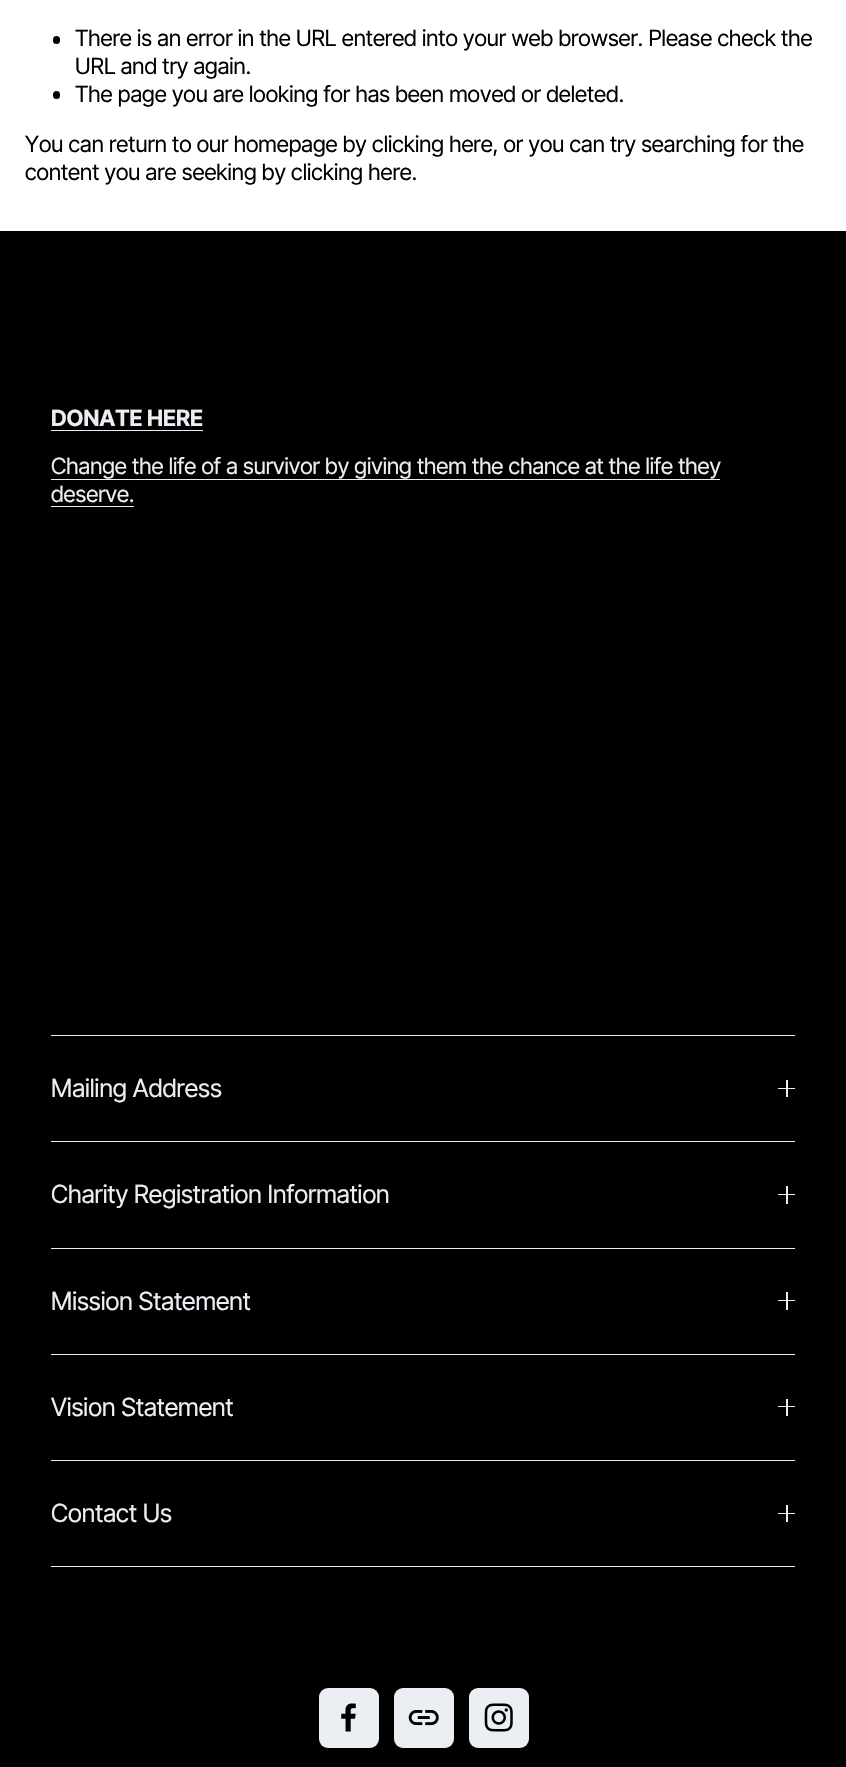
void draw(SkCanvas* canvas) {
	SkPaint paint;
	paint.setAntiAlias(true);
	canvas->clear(0xffffffff);
	paint.setColor(0xff000000);
	canvas->drawRoundRect(SkRect::MakeXYWH(53, 36, 7, 8), 3.5, 3.5, paint);
	SkFont f1(fontMgr->matchFamilyStyle("Inter Tight", SkFontStyle::Normal()), 22.45);
	f1.setSubpixel(true);
	canvas->drawString("There is an error in the URL entered into your web browser. Please check the", 75, 46, f1, paint);
	canvas->drawString("URL and try again.", 75, 74, f1, paint);
	canvas->drawRoundRect(SkRect::MakeXYWH(53, 91, 7, 8), 3.5, 3.5, paint);
	canvas->drawString("The page you are looking for has been moved or deleted.", 75, 102, f1, paint);
	canvas->drawString("You can return to our homepage by clicking here, or you can try searching for the", 25, 152, f1, paint);
	canvas->drawString("content you are seeking by clicking here.", 25, 180, f1, paint);
	canvas->drawRect(SkRect::MakeXYWH(0, 231, 846, 1536), paint);
	SkFont f2(fontMgr->matchFamilyStyle("Inter Tight", SkFontStyle::Bold()), 22.45);
	f2.setSubpixel(true);
	paint.setColor(0xffebeff3);
	canvas->drawString("DONATE HERE", 51, 426, f2, paint);
	canvas->drawRect(SkRect::MakeXYWH(51, 430, 152, 1), paint);
	canvas->drawString("Change the life of a survivor by giving them the chance at the life they", 51, 474, f1, paint);
	canvas->drawRect(SkRect::MakeXYWH(51, 479, 669, 1), paint);
	canvas->drawString("deserve.", 51, 502, f1, paint);
	canvas->drawRect(SkRect::MakeXYWH(51, 506, 83, 1), paint);
	canvas->drawRect(SkRect::MakeXYWH(51, 1035, 744, 1), paint);
	SkFont f3(fontMgr->matchFamilyStyle("Inter Tight", SkFontStyle::Normal()), 25);
	f3.setSubpixel(true);
	canvas->drawString("Mailing Address", 51, 1097, f3, paint);
	canvas->drawRect(SkRect::MakeXYWH(778, 1088, 17, 1), paint);
	canvas->drawRect(SkRect::MakeXYWH(786, 1080, 2, 17), paint);
	canvas->drawRect(SkRect::MakeXYWH(51, 1141, 744, 1), paint);
	canvas->drawString("Charity Registration Information", 51, 1203, f3, paint);
	canvas->drawRect(SkRect::MakeXYWH(778, 1194, 17, 1), paint);
	canvas->drawRect(SkRect::MakeXYWH(786, 1186, 2, 18), paint);
	canvas->drawRect(SkRect::MakeXYWH(51, 1248, 744, 1), paint);
	canvas->drawString("Mission Statement", 51, 1310, f3, paint);
	canvas->drawRect(SkRect::MakeXYWH(778, 1300, 17, 1), paint);
	canvas->drawRect(SkRect::MakeXYWH(786, 1292, 2, 18), paint);
	canvas->drawRect(SkRect::MakeXYWH(51, 1354, 744, 1), paint);
	canvas->drawString("Vision Statement", 51, 1416, f3, paint);
	canvas->drawRect(SkRect::MakeXYWH(778, 1406, 17, 1), paint);
	canvas->drawRect(SkRect::MakeXYWH(786, 1399, 2, 17), paint);
	canvas->drawRect(SkRect::MakeXYWH(51, 1460, 744, 1), paint);
	canvas->drawString("Contact Us", 51, 1522, f3, paint);
	canvas->drawRect(SkRect::MakeXYWH(778, 1513, 17, 1), paint);
	canvas->drawRect(SkRect::MakeXYWH(786, 1505, 2, 17), paint);
	canvas->drawRect(SkRect::MakeXYWH(51, 1566, 744, 1), paint);
	canvas->drawRoundRect(SkRect::MakeXYWH(319, 1688, 60, 60), 9, 9, paint);
	canvas->drawImageRect(SkImages::DeferredFromEncodedData(SkData::MakeFromFileName("img1.png")), SkRect::MakeXYWH(341, 1703, 15, 29), SkSamplingOptions());
	canvas->drawRoundRect(SkRect::MakeXYWH(394, 1688, 60, 60), 9, 9, paint);
	canvas->drawImageRect(SkImages::DeferredFromEncodedData(SkData::MakeFromFileName("img2.png")), SkRect::MakeXYWH(408, 1710, 31, 16), SkSamplingOptions());
	canvas->drawRoundRect(SkRect::MakeXYWH(469, 1688, 60, 60), 9, 9, paint);
	canvas->drawImageRect(SkImages::DeferredFromEncodedData(SkData::MakeFromFileName("img3.png")), SkRect::MakeXYWH(484, 1703, 29, 29), SkSamplingOptions());
}
